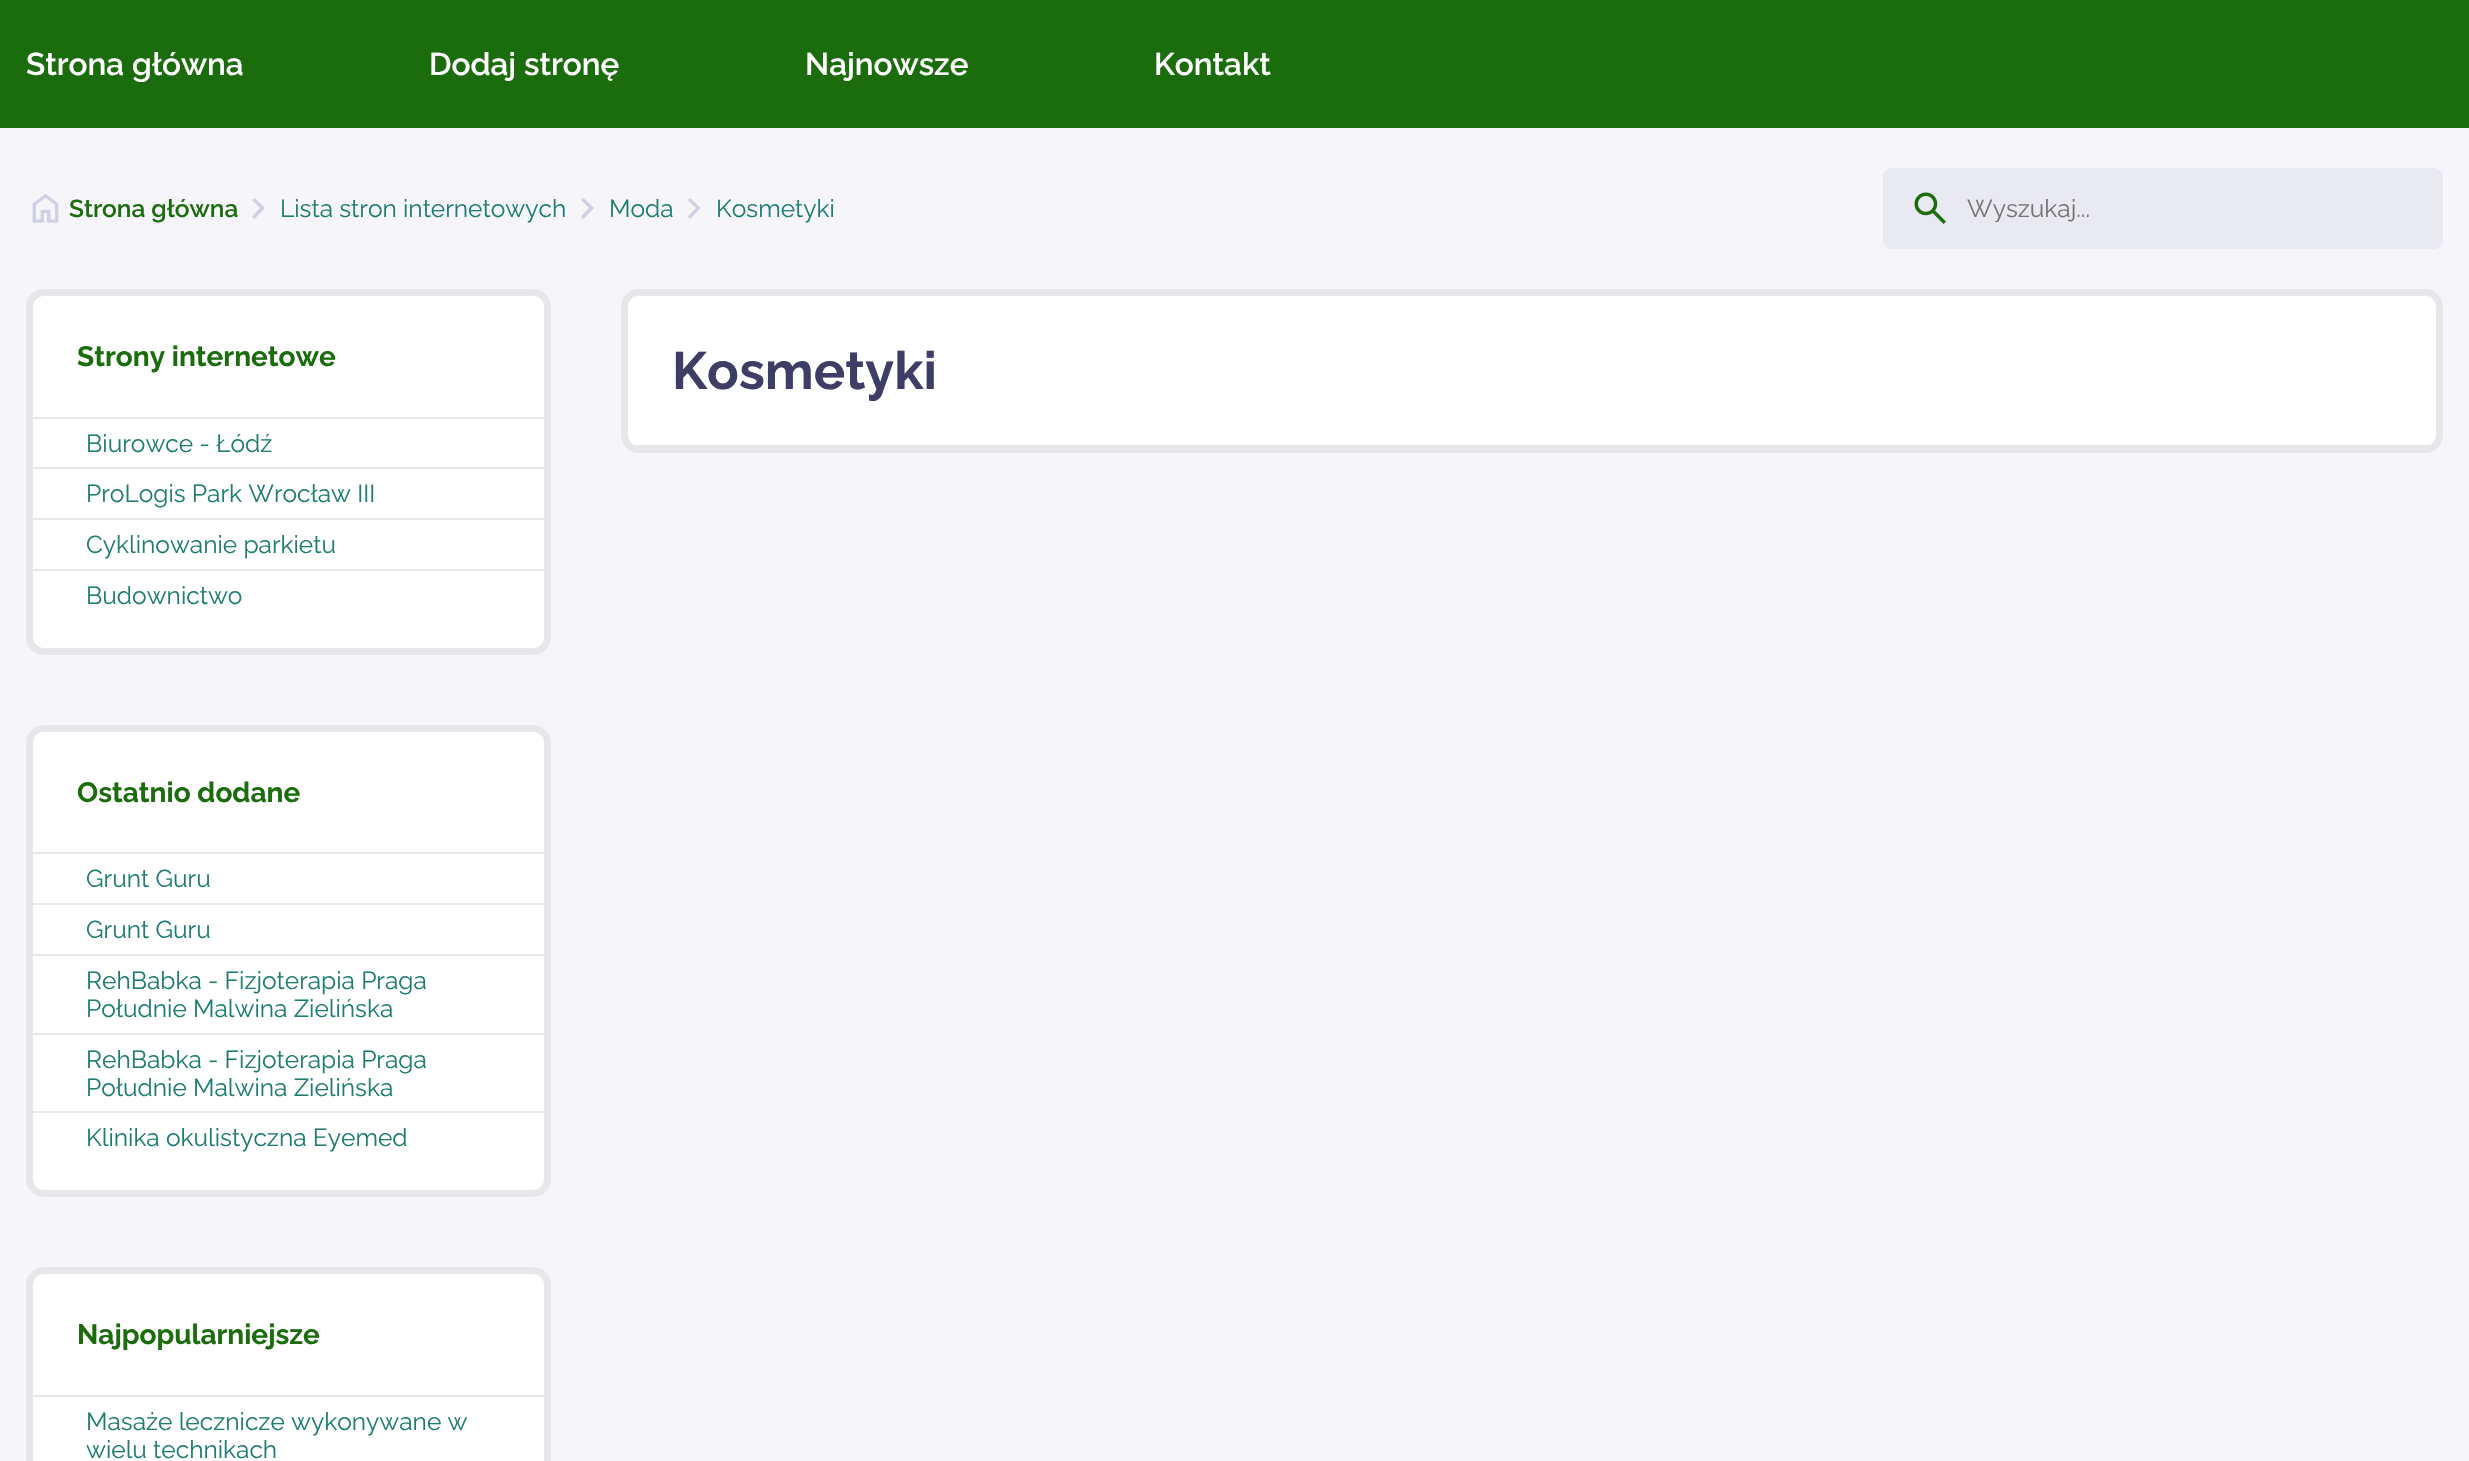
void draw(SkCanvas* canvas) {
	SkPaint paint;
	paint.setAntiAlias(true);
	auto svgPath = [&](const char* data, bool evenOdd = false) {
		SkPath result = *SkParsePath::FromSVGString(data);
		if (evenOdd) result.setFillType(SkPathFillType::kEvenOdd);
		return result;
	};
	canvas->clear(0xfff5f5fa);
	paint.setColor(0xff1a6c0d);
	canvas->drawRect(SkRect::MakeXYWH(0, 0, 2469, 128), paint);
	SkFont f1(fontMgr->matchFamilyStyle("Raleway", SkFontStyle(100, SkFontStyle::kNormal_Width, SkFontStyle::kUpright_Slant)), 31.5);
	f1.setSubpixel(true);
	paint.setColor(0xffffffff);
	canvas->drawString("Strona główna", 26, 75, f1, paint);
	canvas->drawString("Dodaj stronę", 429, 75, f1, paint);
	canvas->drawString("Najnowsze", 805, 75, f1, paint);
	canvas->drawString("Kontakt", 1154, 75, f1, paint);
	canvas->drawImageRect(SkImages::DeferredFromEncodedData(SkData::MakeFromFileName("img1.png")), SkRect::MakeXYWH(32, 194, 27, 29), SkSamplingOptions());
	SkFont f2(fontMgr->matchFamilyStyle("Raleway", SkFontStyle(100, SkFontStyle::kNormal_Width, SkFontStyle::kUpright_Slant)), 24.5);
	f2.setSubpixel(true);
	paint.setColor(0xff1a6c0d);
	canvas->drawString("Strona główna", 69, 217, f2, paint);
	paint.setColor(0xffcfcfe6);
	canvas->drawPath(svgPath("M254.5 219L252 216.5L260 208L252 200L254.5 198L265 208Z"), paint);
	SkFont f3(fontMgr->matchFamilyStyle("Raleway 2", SkFontStyle(100, SkFontStyle::kNormal_Width, SkFontStyle::kUpright_Slant)), 24.5);
	f3.setSubpixel(true);
	paint.setColor(0xff1e7d73);
	canvas->drawString("Lista stron internetowych", 280, 217, f3, paint);
	paint.setColor(0xffcfcfe6);
	canvas->drawPath(svgPath("M583.5 219L581 216.5L589 208L581 200L583.5 198L594 208Z"), paint);
	paint.setColor(0xff1e7d73);
	canvas->drawString("Moda", 609, 217, f3, paint);
	paint.setColor(0xffcfcfe6);
	canvas->drawPath(svgPath("M690 219L688 216.5L696 208L688 200L690 198L700.5 208Z"), paint);
	paint.setColor(0xff1e7d73);
	canvas->drawString("Kosmetyki", 716, 217, f3, paint);
	paint.setColor(0xffe9e9f2);
	canvas->drawRoundRect(SkRect::MakeXYWH(1883, 168, 560, 81), 9, 9, paint);
	canvas->drawImageRect(SkImages::DeferredFromEncodedData(SkData::MakeFromFileName("img2.png")), SkRect::MakeXYWH(1914, 192, 32, 32), SkSamplingOptions());
	canvas->save();
	canvas->clipRect(SkRect::MakeXYWH(1967, 194, 392, 28));
	paint.setColor(0xff757575);
	canvas->drawString("Wyszukaj...", 1967, 217, f3, paint);
	canvas->restore();
	paint.setColor(0xffffffff);
	canvas->drawRoundRect(SkRect::MakeXYWH(29.5, 292.5, 518, 359), 14.5, 14.5, paint);
	paint.setStroke(true);
	paint.setStrokeWidth(7);
	paint.setColor(0xffe6e6eb);
	canvas->drawRoundRect(SkRect::MakeXYWH(29.5, 292.5, 518, 359), 14.5, 14.5, paint);
	paint.setStroke(false);
	canvas->drawRect(SkRect::MakeXYWH(33, 417, 511, 2), paint);
	SkFont f4(fontMgr->matchFamilyStyle("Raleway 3", SkFontStyle(100, SkFontStyle::kNormal_Width, SkFontStyle::kUpright_Slant)), 28);
	f4.setSubpixel(true);
	paint.setColor(0xff1a6c0d);
	canvas->drawString("Strony internetowe", 77, 366, f4, paint);
	paint.setColor(0xffe6e6eb);
	canvas->drawRect(SkRect::MakeXYWH(33, 467, 511, 2), paint);
	paint.setColor(0xff1e7d73);
	canvas->drawString("Biurowce - Łódź", 86, 452, f3, paint);
	paint.setColor(0xffe6e6eb);
	canvas->drawRect(SkRect::MakeXYWH(33, 518, 511, 2), paint);
	paint.setColor(0xff1e7d73);
	canvas->drawString("ProLogis Park Wrocław III", 86, 502, f3, paint);
	paint.setColor(0xffe6e6eb);
	canvas->drawRect(SkRect::MakeXYWH(33, 569, 511, 2), paint);
	paint.setColor(0xff1e7d73);
	canvas->drawString("Cyklinowanie parkietu", 86, 553, f3, paint);
	canvas->drawString("Budownictwo", 86, 604, f3, paint);
	paint.setColor(0xffffffff);
	canvas->drawRoundRect(SkRect::MakeXYWH(29.5, 728.5, 518, 465), 14.5, 14.5, paint);
	paint.setStroke(true);
	paint.setColor(0xffe6e6eb);
	canvas->drawRoundRect(SkRect::MakeXYWH(29.5, 728.5, 518, 465), 14.5, 14.5, paint);
	paint.setStroke(false);
	canvas->drawRect(SkRect::MakeXYWH(33, 852, 511, 2), paint);
	paint.setColor(0xff1a6c0d);
	canvas->drawString("Ostatnio dodane", 77, 802, f4, paint);
	paint.setColor(0xffe6e6eb);
	canvas->drawRect(SkRect::MakeXYWH(33, 903, 511, 2), paint);
	paint.setColor(0xff1e7d73);
	canvas->drawString("Grunt Guru", 86, 887, f3, paint);
	paint.setColor(0xffe6e6eb);
	canvas->drawRect(SkRect::MakeXYWH(33, 954, 511, 2), paint);
	paint.setColor(0xff1e7d73);
	canvas->drawString("Grunt Guru", 86, 938, f3, paint);
	paint.setColor(0xffe6e6eb);
	canvas->drawRect(SkRect::MakeXYWH(33, 1033, 511, 2), paint);
	paint.setColor(0xff1e7d73);
	canvas->drawString("RehBabka - Fizjoterapia Praga", 86, 989, f3, paint);
	canvas->drawString("Południe Malwina Zielińska", 86, 1017, f3, paint);
	paint.setColor(0xffe6e6eb);
	canvas->drawRect(SkRect::MakeXYWH(33, 1111, 511, 2), paint);
	paint.setColor(0xff1e7d73);
	canvas->drawString("RehBabka - Fizjoterapia Praga", 86, 1068, f3, paint);
	canvas->drawString("Południe Malwina Zielińska", 86, 1096, f3, paint);
	canvas->drawString("Klinika okulistyczna Eyemed", 86, 1146, f3, paint);
	paint.setColor(0xffffffff);
	canvas->drawRoundRect(SkRect::MakeXYWH(29.5, 1270.5, 518, 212), 14.5, 14.5, paint);
	paint.setStroke(true);
	paint.setColor(0xffe6e6eb);
	canvas->drawRoundRect(SkRect::MakeXYWH(29.5, 1270.5, 518, 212), 14.5, 14.5, paint);
	paint.setStroke(false);
	canvas->drawRect(SkRect::MakeXYWH(33, 1395, 511, 2), paint);
	paint.setColor(0xff1a6c0d);
	canvas->drawString("Najpopularniejsze", 77, 1344, f4, paint);
	paint.setColor(0xff1e7d73);
	canvas->drawString("Masaże lecznicze wykonywane w", 86, 1430, f3, paint);
	canvas->drawString("wielu technikach", 86, 1458, f3, paint);
	paint.setColor(0xffffffff);
	canvas->drawRoundRect(SkRect::MakeXYWH(624.5, 292.5, 1815, 157), 14.5, 14.5, paint);
	paint.setStroke(true);
	paint.setColor(0xffe6e6eb);
	canvas->drawRoundRect(SkRect::MakeXYWH(624.5, 292.5, 1815, 157), 14.5, 14.5, paint);
	paint.setStroke(false);
	canvas->drawRect(SkRect::MakeXYWH(628, 445, 1808, 1), paint);
	SkFont f5(fontMgr->matchFamilyStyle("Raleway 3", SkFontStyle(100, SkFontStyle::kNormal_Width, SkFontStyle::kUpright_Slant)), 52.5);
	f5.setSubpixel(true);
	paint.setColor(0xff3d3d66);
	canvas->drawString("Kosmetyki", 672, 389, f5, paint);
}
